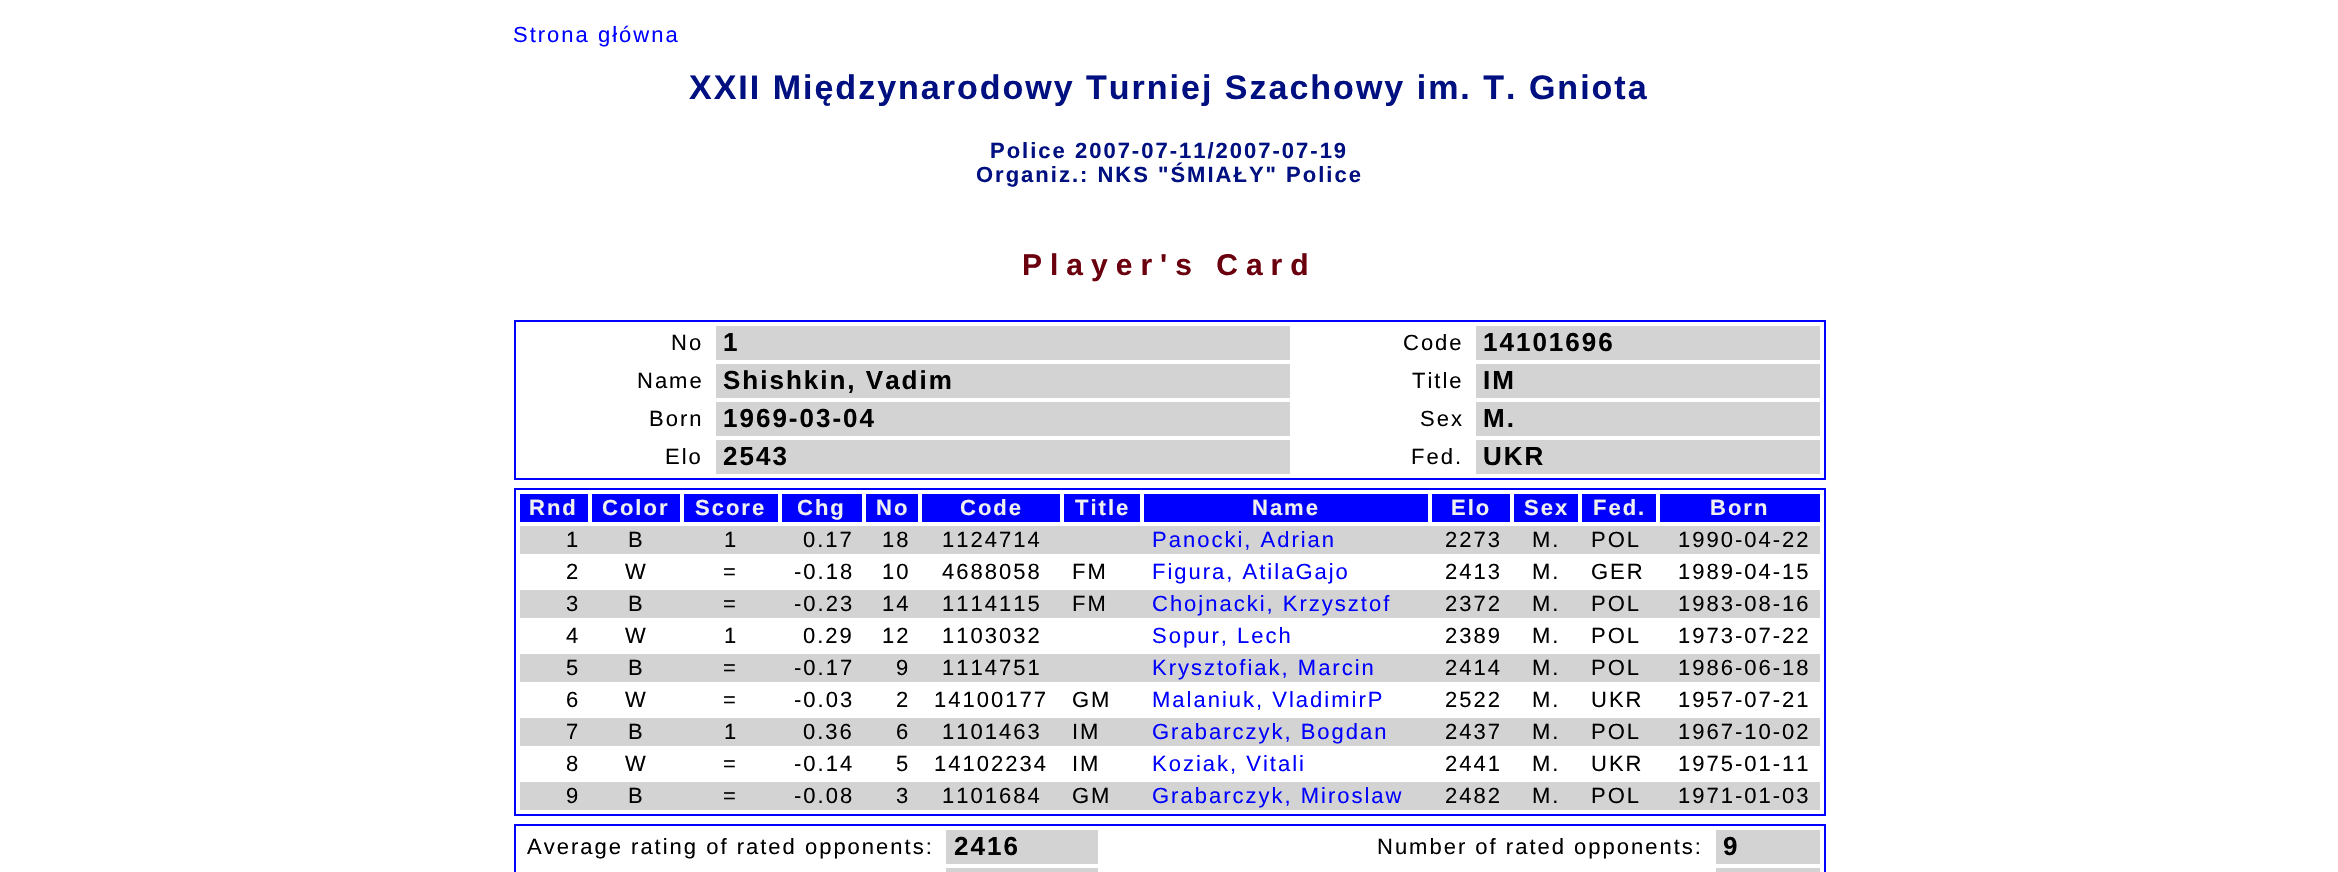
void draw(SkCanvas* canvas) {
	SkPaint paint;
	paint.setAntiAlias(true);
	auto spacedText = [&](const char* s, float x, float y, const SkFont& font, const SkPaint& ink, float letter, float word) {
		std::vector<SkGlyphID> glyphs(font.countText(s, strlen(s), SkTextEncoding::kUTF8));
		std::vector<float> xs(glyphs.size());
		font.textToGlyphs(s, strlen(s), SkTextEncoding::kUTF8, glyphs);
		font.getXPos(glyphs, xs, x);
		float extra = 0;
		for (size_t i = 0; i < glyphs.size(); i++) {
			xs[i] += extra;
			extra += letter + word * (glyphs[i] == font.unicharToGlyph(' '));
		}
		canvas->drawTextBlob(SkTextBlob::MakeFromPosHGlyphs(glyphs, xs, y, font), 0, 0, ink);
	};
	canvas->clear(0xffffffff);
	SkFont f1(fontMgr->matchFamilyStyle("Liberation Sans", SkFontStyle::Normal()), 22);
	f1.setSubpixel(true);
	paint.setColor(0xff0000ff);
	spacedText("Strona główna", 513, 42, f1, paint, 2, 0);
	SkFont f2(fontMgr->matchFamilyStyle("Liberation Sans", SkFontStyle::Bold()), 34);
	f2.setSubpixel(true);
	paint.setColor(0xff001080);
	spacedText("XXII Międzynarodowy Turniej Szachowy im. T. Gniota", 689, 99, f2, paint, 2, 0);
	SkFont f3(fontMgr->matchFamilyStyle("Liberation Sans", SkFontStyle::Bold()), 22);
	f3.setSubpixel(true);
	spacedText("Police 2007-07-11/2007-07-19", 990, 158, f3, paint, 2, 0);
	spacedText("Organiz.: NKS \"ŚMIAŁY\" Police", 976, 182, f3, paint, 2, 0);
	SkFont f4(fontMgr->matchFamilyStyle("Liberation Sans", SkFontStyle::Bold()), 30);
	f4.setSubpixel(true);
	paint.setColor(0xff6a000d);
	spacedText("Player's Card", 1022, 275, f4, paint, 8, 0);
	paint.setStroke(true);
	paint.setStrokeWidth(2);
	paint.setColor(0xff0000ff);
	canvas->drawRect(SkRect::MakeXYWH(515, 321, 1310, 158), paint);
	paint.setStroke(false);
	paint.setColor(0xff000000);
	spacedText("No", 671, 350, f1, paint, 2, 0);
	paint.setColor(0xffd3d3d3);
	canvas->drawRect(SkRect::MakeXYWH(716, 326, 574, 34), paint);
	SkFont f5(fontMgr->matchFamilyStyle("Liberation Sans", SkFontStyle::Bold()), 26);
	f5.setSubpixel(true);
	paint.setColor(0xff000000);
	spacedText("1", 723, 351, f5, paint, 2, 0);
	spacedText("Code", 1403, 350, f1, paint, 2, 0);
	paint.setColor(0xffd3d3d3);
	canvas->drawRect(SkRect::MakeXYWH(1476, 326, 344, 34), paint);
	paint.setColor(0xff000000);
	spacedText("14101696", 1483, 351, f5, paint, 2, 0);
	spacedText("Name", 637, 388, f1, paint, 2, 0);
	paint.setColor(0xffd3d3d3);
	canvas->drawRect(SkRect::MakeXYWH(716, 364, 574, 34), paint);
	paint.setColor(0xff000000);
	spacedText("Shishkin, Vadim", 723, 389, f5, paint, 2, 0);
	spacedText("Title", 1412, 388, f1, paint, 2, 0);
	paint.setColor(0xffd3d3d3);
	canvas->drawRect(SkRect::MakeXYWH(1476, 364, 344, 34), paint);
	paint.setColor(0xff000000);
	spacedText("IM", 1483, 389, f5, paint, 2, 0);
	spacedText("Born", 649, 426, f1, paint, 2, 0);
	paint.setColor(0xffd3d3d3);
	canvas->drawRect(SkRect::MakeXYWH(716, 402, 574, 34), paint);
	paint.setColor(0xff000000);
	spacedText("1969-03-04", 723, 427, f5, paint, 2, 0);
	spacedText("Sex", 1420, 426, f1, paint, 2, 0);
	paint.setColor(0xffd3d3d3);
	canvas->drawRect(SkRect::MakeXYWH(1476, 402, 344, 34), paint);
	paint.setColor(0xff000000);
	spacedText("M.", 1483, 427, f5, paint, 2, 0);
	spacedText("Elo", 665, 464, f1, paint, 2, 0);
	paint.setColor(0xffd3d3d3);
	canvas->drawRect(SkRect::MakeXYWH(716, 440, 574, 34), paint);
	paint.setColor(0xff000000);
	spacedText("2543", 723, 465, f5, paint, 2, 0);
	spacedText("Fed.", 1411, 464, f1, paint, 2, 0);
	paint.setColor(0xffd3d3d3);
	canvas->drawRect(SkRect::MakeXYWH(1476, 440, 344, 34), paint);
	paint.setColor(0xff000000);
	spacedText("UKR", 1483, 465, f5, paint, 2, 0);
	paint.setStroke(true);
	paint.setColor(0xff0000ff);
	canvas->drawRect(SkRect::MakeXYWH(515, 489, 1310, 326), paint);
	paint.setStroke(false);
	canvas->drawRect(SkRect::MakeXYWH(520, 494, 68, 28), paint);
	paint.setColor(0xfff0f0f0);
	spacedText("Rnd", 529, 515, f3, paint, 2, 0);
	paint.setColor(0xff0000ff);
	canvas->drawRect(SkRect::MakeXYWH(592, 494, 88, 28), paint);
	paint.setColor(0xfff0f0f0);
	spacedText("Color", 602, 515, f3, paint, 2, 0);
	paint.setColor(0xff0000ff);
	canvas->drawRect(SkRect::MakeXYWH(684, 494, 94, 28), paint);
	paint.setColor(0xfff0f0f0);
	spacedText("Score", 695, 515, f3, paint, 2, 0);
	paint.setColor(0xff0000ff);
	canvas->drawRect(SkRect::MakeXYWH(782, 494, 80, 28), paint);
	paint.setColor(0xfff0f0f0);
	spacedText("Chg", 797, 515, f3, paint, 2, 0);
	paint.setColor(0xff0000ff);
	canvas->drawRect(SkRect::MakeXYWH(866, 494, 52, 28), paint);
	paint.setColor(0xfff0f0f0);
	spacedText("No", 876, 515, f3, paint, 2, 0);
	paint.setColor(0xff0000ff);
	canvas->drawRect(SkRect::MakeXYWH(922, 494, 138, 28), paint);
	paint.setColor(0xfff0f0f0);
	spacedText("Code", 960, 515, f3, paint, 2, 0);
	paint.setColor(0xff0000ff);
	canvas->drawRect(SkRect::MakeXYWH(1064, 494, 76, 28), paint);
	paint.setColor(0xfff0f0f0);
	spacedText("Title", 1075, 515, f3, paint, 2, 0);
	paint.setColor(0xff0000ff);
	canvas->drawRect(SkRect::MakeXYWH(1144, 494, 284, 28), paint);
	paint.setColor(0xfff0f0f0);
	spacedText("Name", 1252, 515, f3, paint, 2, 0);
	paint.setColor(0xff0000ff);
	canvas->drawRect(SkRect::MakeXYWH(1432, 494, 78, 28), paint);
	paint.setColor(0xfff0f0f0);
	spacedText("Elo", 1451, 515, f3, paint, 2, 0);
	paint.setColor(0xff0000ff);
	canvas->drawRect(SkRect::MakeXYWH(1514, 494, 64, 28), paint);
	paint.setColor(0xfff0f0f0);
	spacedText("Sex", 1524, 515, f3, paint, 2, 0);
	paint.setColor(0xff0000ff);
	canvas->drawRect(SkRect::MakeXYWH(1582, 494, 74, 28), paint);
	paint.setColor(0xfff0f0f0);
	spacedText("Fed.", 1593, 515, f3, paint, 2, 0);
	paint.setColor(0xff0000ff);
	canvas->drawRect(SkRect::MakeXYWH(1660, 494, 160, 28), paint);
	paint.setColor(0xfff0f0f0);
	spacedText("Born", 1710, 515, f3, paint, 2, 0);
	paint.setColor(0xffd3d3d3);
	canvas->drawRect(SkRect::MakeXYWH(520, 526, 1300, 28), paint);
	paint.setColor(0xff000000);
	spacedText("1", 566, 547, f1, paint, 2, 0);
	spacedText("B", 628, 547, f1, paint, 2, 0);
	spacedText("1", 724, 547, f1, paint, 2, 0);
	spacedText("0.17", 803, 547, f1, paint, 2, 0);
	spacedText("18", 882, 547, f1, paint, 2, 0);
	spacedText("1124714", 942, 547, f1, paint, 2, 0);
	paint.setColor(0xff0000ff);
	spacedText("Panocki, Adrian", 1152, 547, f1, paint, 2, 0);
	paint.setColor(0xff000000);
	spacedText("2273", 1445, 547, f1, paint, 2, 0);
	spacedText("M.", 1532, 547, f1, paint, 2, 0);
	spacedText("POL", 1591, 547, f1, paint, 2, 0);
	spacedText("1990-04-22", 1678, 547, f1, paint, 2, 0);
	spacedText("2", 566, 579, f1, paint, 2, 0);
	spacedText("W", 625, 579, f1, paint, 2, 0);
	spacedText("=", 723, 579, f1, paint, 2, 0);
	spacedText("-0.18", 794, 579, f1, paint, 2, 0);
	spacedText("10", 882, 579, f1, paint, 2, 0);
	spacedText("4688058", 942, 579, f1, paint, 2, 0);
	spacedText("FM", 1072, 579, f1, paint, 2, 0);
	paint.setColor(0xff0000ff);
	spacedText("Figura, AtilaGajo", 1152, 579, f1, paint, 2, 0);
	paint.setColor(0xff000000);
	spacedText("2413", 1445, 579, f1, paint, 2, 0);
	spacedText("M.", 1532, 579, f1, paint, 2, 0);
	spacedText("GER", 1591, 579, f1, paint, 2, 0);
	spacedText("1989-04-15", 1678, 579, f1, paint, 2, 0);
	paint.setColor(0xffd3d3d3);
	canvas->drawRect(SkRect::MakeXYWH(520, 590, 1300, 28), paint);
	paint.setColor(0xff000000);
	spacedText("3", 566, 611, f1, paint, 2, 0);
	spacedText("B", 628, 611, f1, paint, 2, 0);
	spacedText("=", 723, 611, f1, paint, 2, 0);
	spacedText("-0.23", 794, 611, f1, paint, 2, 0);
	spacedText("14", 882, 611, f1, paint, 2, 0);
	spacedText("1114115", 942, 611, f1, paint, 2, 0);
	spacedText("FM", 1072, 611, f1, paint, 2, 0);
	paint.setColor(0xff0000ff);
	spacedText("Chojnacki, Krzysztof", 1152, 611, f1, paint, 2, 0);
	paint.setColor(0xff000000);
	spacedText("2372", 1445, 611, f1, paint, 2, 0);
	spacedText("M.", 1532, 611, f1, paint, 2, 0);
	spacedText("POL", 1591, 611, f1, paint, 2, 0);
	spacedText("1983-08-16", 1678, 611, f1, paint, 2, 0);
	spacedText("4", 566, 643, f1, paint, 2, 0);
	spacedText("W", 625, 643, f1, paint, 2, 0);
	spacedText("1", 724, 643, f1, paint, 2, 0);
	spacedText("0.29", 803, 643, f1, paint, 2, 0);
	spacedText("12", 882, 643, f1, paint, 2, 0);
	spacedText("1103032", 942, 643, f1, paint, 2, 0);
	paint.setColor(0xff0000ff);
	spacedText("Sopur, Lech", 1152, 643, f1, paint, 2, 0);
	paint.setColor(0xff000000);
	spacedText("2389", 1445, 643, f1, paint, 2, 0);
	spacedText("M.", 1532, 643, f1, paint, 2, 0);
	spacedText("POL", 1591, 643, f1, paint, 2, 0);
	spacedText("1973-07-22", 1678, 643, f1, paint, 2, 0);
	paint.setColor(0xffd3d3d3);
	canvas->drawRect(SkRect::MakeXYWH(520, 654, 1300, 28), paint);
	paint.setColor(0xff000000);
	spacedText("5", 566, 675, f1, paint, 2, 0);
	spacedText("B", 628, 675, f1, paint, 2, 0);
	spacedText("=", 723, 675, f1, paint, 2, 0);
	spacedText("-0.17", 794, 675, f1, paint, 2, 0);
	spacedText("9", 896, 675, f1, paint, 2, 0);
	spacedText("1114751", 942, 675, f1, paint, 2, 0);
	paint.setColor(0xff0000ff);
	spacedText("Krysztofiak, Marcin", 1152, 675, f1, paint, 2, 0);
	paint.setColor(0xff000000);
	spacedText("2414", 1445, 675, f1, paint, 2, 0);
	spacedText("M.", 1532, 675, f1, paint, 2, 0);
	spacedText("POL", 1591, 675, f1, paint, 2, 0);
	spacedText("1986-06-18", 1678, 675, f1, paint, 2, 0);
	spacedText("6", 566, 707, f1, paint, 2, 0);
	spacedText("W", 625, 707, f1, paint, 2, 0);
	spacedText("=", 723, 707, f1, paint, 2, 0);
	spacedText("-0.03", 794, 707, f1, paint, 2, 0);
	spacedText("2", 896, 707, f1, paint, 2, 0);
	spacedText("14100177", 934, 707, f1, paint, 2, 0);
	spacedText("GM", 1072, 707, f1, paint, 2, 0);
	paint.setColor(0xff0000ff);
	spacedText("Malaniuk, VladimirP", 1152, 707, f1, paint, 2, 0);
	paint.setColor(0xff000000);
	spacedText("2522", 1445, 707, f1, paint, 2, 0);
	spacedText("M.", 1532, 707, f1, paint, 2, 0);
	spacedText("UKR", 1591, 707, f1, paint, 2, 0);
	spacedText("1957-07-21", 1678, 707, f1, paint, 2, 0);
	paint.setColor(0xffd3d3d3);
	canvas->drawRect(SkRect::MakeXYWH(520, 718, 1300, 28), paint);
	paint.setColor(0xff000000);
	spacedText("7", 566, 739, f1, paint, 2, 0);
	spacedText("B", 628, 739, f1, paint, 2, 0);
	spacedText("1", 724, 739, f1, paint, 2, 0);
	spacedText("0.36", 803, 739, f1, paint, 2, 0);
	spacedText("6", 896, 739, f1, paint, 2, 0);
	spacedText("1101463", 942, 739, f1, paint, 2, 0);
	spacedText("IM", 1072, 739, f1, paint, 2, 0);
	paint.setColor(0xff0000ff);
	spacedText("Grabarczyk, Bogdan", 1152, 739, f1, paint, 2, 0);
	paint.setColor(0xff000000);
	spacedText("2437", 1445, 739, f1, paint, 2, 0);
	spacedText("M.", 1532, 739, f1, paint, 2, 0);
	spacedText("POL", 1591, 739, f1, paint, 2, 0);
	spacedText("1967-10-02", 1678, 739, f1, paint, 2, 0);
	spacedText("8", 566, 771, f1, paint, 2, 0);
	spacedText("W", 625, 771, f1, paint, 2, 0);
	spacedText("=", 723, 771, f1, paint, 2, 0);
	spacedText("-0.14", 794, 771, f1, paint, 2, 0);
	spacedText("5", 896, 771, f1, paint, 2, 0);
	spacedText("14102234", 934, 771, f1, paint, 2, 0);
	spacedText("IM", 1072, 771, f1, paint, 2, 0);
	paint.setColor(0xff0000ff);
	spacedText("Koziak, Vitali", 1152, 771, f1, paint, 2, 0);
	paint.setColor(0xff000000);
	spacedText("2441", 1445, 771, f1, paint, 2, 0);
	spacedText("M.", 1532, 771, f1, paint, 2, 0);
	spacedText("UKR", 1591, 771, f1, paint, 2, 0);
	spacedText("1975-01-11", 1678, 771, f1, paint, 2, 0);
	paint.setColor(0xffd3d3d3);
	canvas->drawRect(SkRect::MakeXYWH(520, 782, 1300, 28), paint);
	paint.setColor(0xff000000);
	spacedText("9", 566, 803, f1, paint, 2, 0);
	spacedText("B", 628, 803, f1, paint, 2, 0);
	spacedText("=", 723, 803, f1, paint, 2, 0);
	spacedText("-0.08", 794, 803, f1, paint, 2, 0);
	spacedText("3", 896, 803, f1, paint, 2, 0);
	spacedText("1101684", 942, 803, f1, paint, 2, 0);
	spacedText("GM", 1072, 803, f1, paint, 2, 0);
	paint.setColor(0xff0000ff);
	spacedText("Grabarczyk, Miroslaw", 1152, 803, f1, paint, 2, 0);
	paint.setColor(0xff000000);
	spacedText("2482", 1445, 803, f1, paint, 2, 0);
	spacedText("M.", 1532, 803, f1, paint, 2, 0);
	spacedText("POL", 1591, 803, f1, paint, 2, 0);
	spacedText("1971-01-03", 1678, 803, f1, paint, 2, 0);
	paint.setStroke(true);
	paint.setColor(0xff0000ff);
	canvas->drawRect(SkRect::MakeXYWH(515, 825, 1310, 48), paint);
	paint.setStroke(false);
	paint.setColor(0xff000000);
	spacedText("Average rating of rated opponents:", 527, 854, f1, paint, 2, 0);
	paint.setColor(0xffd3d3d3);
	canvas->drawRect(SkRect::MakeXYWH(946, 830, 152, 34), paint);
	paint.setColor(0xff000000);
	spacedText("2416", 954, 855, f5, paint, 2, 0);
	spacedText("Number of rated opponents:", 1377, 854, f1, paint, 2, 0);
	paint.setColor(0xffd3d3d3);
	canvas->drawRect(SkRect::MakeXYWH(1716, 830, 104, 34), paint);
	paint.setColor(0xff000000);
	spacedText("9", 1723, 855, f5, paint, 2, 0);
	paint.setColor(0xffd3d3d3);
	canvas->drawRect(SkRect::MakeXYWH(946, 868, 152, 4), paint);
	canvas->drawRect(SkRect::MakeXYWH(1716, 868, 104, 4), paint);
}
